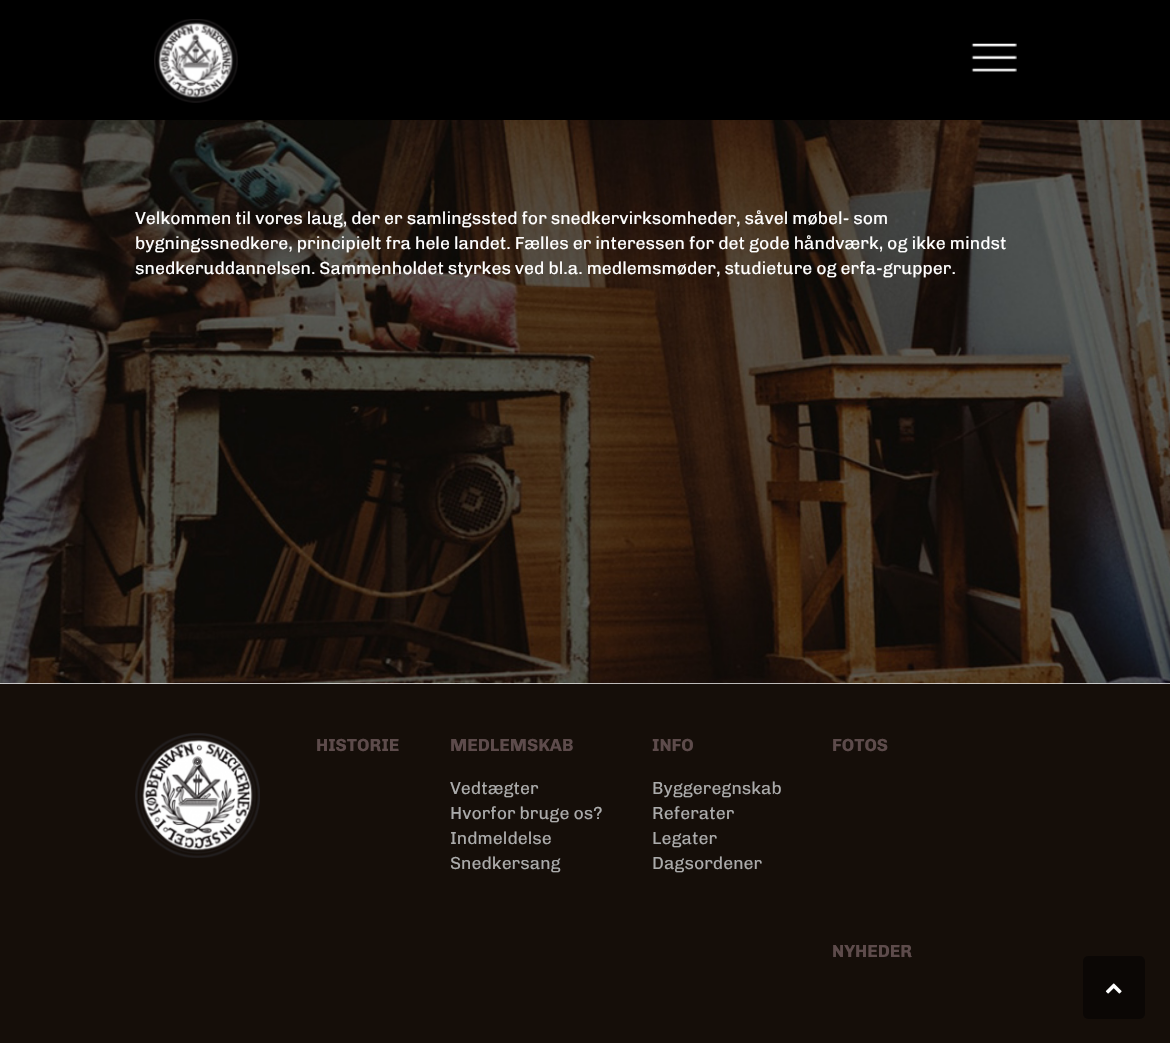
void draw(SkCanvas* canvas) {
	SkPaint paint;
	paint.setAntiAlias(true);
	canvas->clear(0xfff3f3f3);
	paint.setColor(0xff000000);
	canvas->drawRect(SkRect::MakeXYWH(0, 0, 1170, 120), paint);
	canvas->drawImageRect(SkImages::DeferredFromEncodedData(SkData::MakeFromFileName("img1.png")), SkRect::MakeXYWH(154, 19, 84, 84), SkSamplingOptions());
	canvas->drawImageRect(SkImages::DeferredFromEncodedData(SkData::MakeFromFileName("img2.png")), SkRect::MakeXYWH(971, 43, 46, 29), SkSamplingOptions());
	canvas->drawImageRect(SkImages::DeferredFromEncodedData(SkData::MakeFromFileName("img3.png")), SkRect::MakeXYWH(0, 120, 1170, 564), SkSamplingOptions());
	SkFont f1(fontMgr->matchFamilyStyle("Chivo", SkFontStyle::Normal()), 17.5);
	f1.setSubpixel(true);
	paint.setColor(0xffffffff);
	canvas->drawString("Velkommen til vores laug, der er samlingssted for snedkervirksomheder, såvel møbel- som", 135, 224, f1, paint);
	canvas->drawString("bygningssnedkere, principielt fra hele landet. Fælles er interessen for det gode håndværk, og ikke mindst", 135, 249, f1, paint);
	canvas->drawString("snedkeruddannelsen. Sammenholdet styrkes ved bl.a. medlemsmøder, studieture og erfa-grupper.", 135, 274, f1, paint);
	paint.setColor(0xff150e09);
	canvas->drawRect(SkRect::MakeXYWH(0, 684, 1170, 359), paint);
	canvas->drawImageRect(SkImages::DeferredFromEncodedData(SkData::MakeFromFileName("img4.png")), SkRect::MakeXYWH(135, 733, 125, 125), SkSamplingOptions());
	SkFont f2(fontMgr->matchFamilyStyle("Chivo", SkFontStyle::Bold()), 17.5);
	f2.setSubpixel(true);
	paint.setColor(0xff5d4b4b);
	canvas->drawString("HISTORIE", 316, 751, f2, paint);
	canvas->drawString("MEDLEMSKAB", 450, 751, f2, paint);
	paint.setColor(0xffababab);
	canvas->drawString("Vedtægter", 450, 794, f1, paint);
	canvas->drawString("Hvorfor bruge os?", 450, 819, f1, paint);
	canvas->drawString("Indmeldelse", 450, 844, f1, paint);
	canvas->drawString("Snedkersang", 450, 869, f1, paint);
	paint.setColor(0xff5d4b4b);
	canvas->drawString("INFO", 652, 751, f2, paint);
	paint.setColor(0xffababab);
	canvas->drawString("Byggeregnskab", 652, 794, f1, paint);
	canvas->drawString("Referater", 652, 819, f1, paint);
	canvas->drawString("Legater", 652, 844, f1, paint);
	canvas->drawString("Dagsordener", 652, 869, f1, paint);
	paint.setColor(0xff5d4b4b);
	canvas->drawString("FOTOS", 832, 751, f2, paint);
	canvas->drawString("NYHEDER", 832, 957, f2, paint);
	paint.setColor(0xff0b0705);
	canvas->drawRoundRect(SkRect::MakeXYWH(1083, 956, 62, 63), 5, 5, paint);
	canvas->drawImageRect(SkImages::DeferredFromEncodedData(SkData::MakeFromFileName("img5.png")), SkRect::MakeXYWH(1105, 983, 17, 11), SkSamplingOptions());
}
